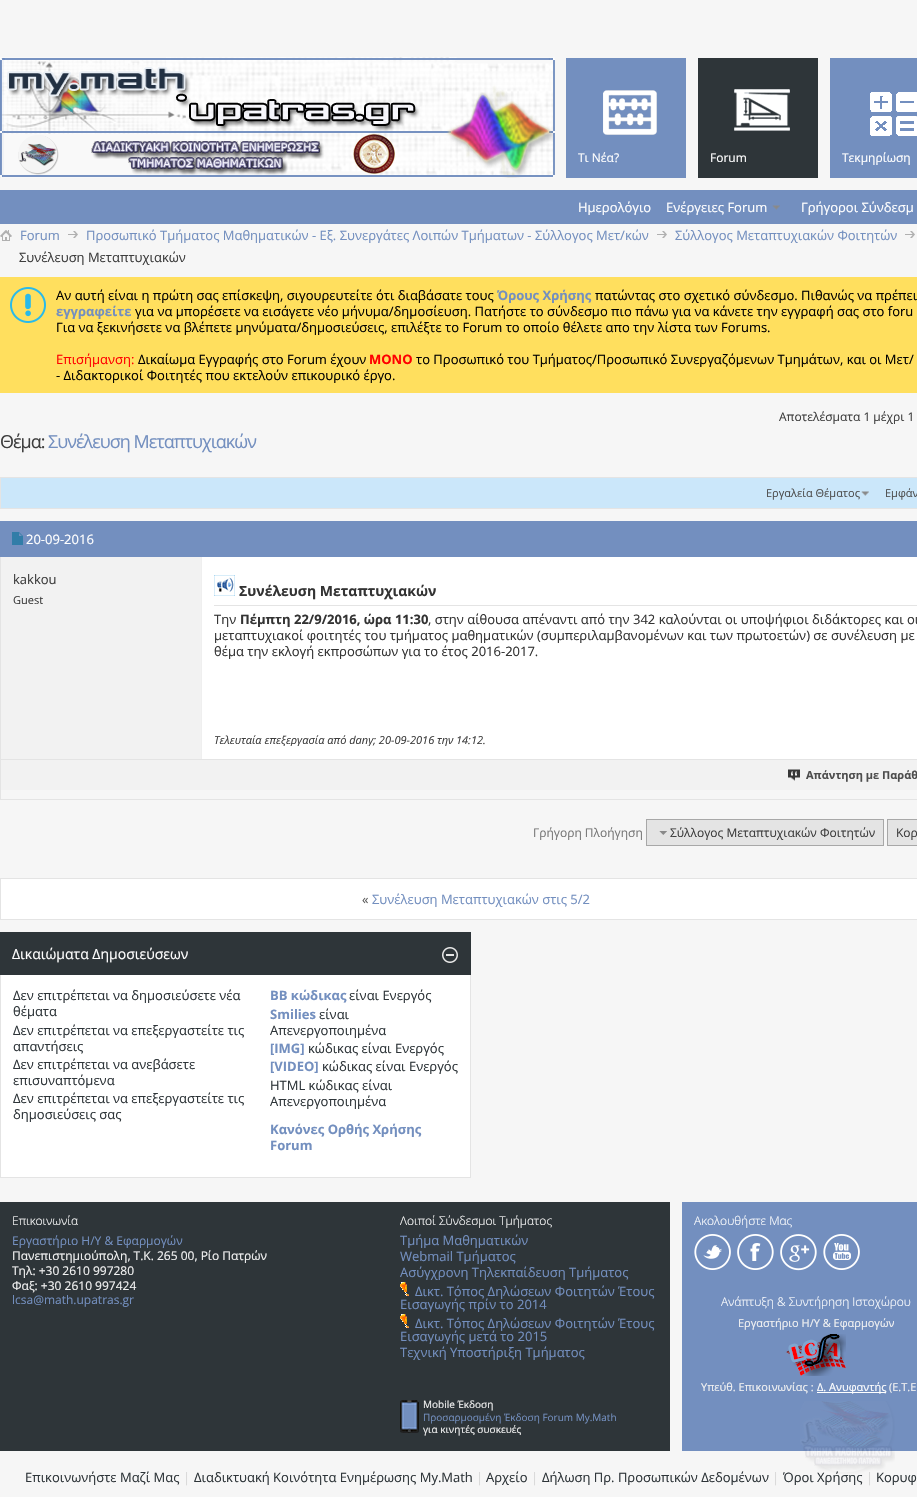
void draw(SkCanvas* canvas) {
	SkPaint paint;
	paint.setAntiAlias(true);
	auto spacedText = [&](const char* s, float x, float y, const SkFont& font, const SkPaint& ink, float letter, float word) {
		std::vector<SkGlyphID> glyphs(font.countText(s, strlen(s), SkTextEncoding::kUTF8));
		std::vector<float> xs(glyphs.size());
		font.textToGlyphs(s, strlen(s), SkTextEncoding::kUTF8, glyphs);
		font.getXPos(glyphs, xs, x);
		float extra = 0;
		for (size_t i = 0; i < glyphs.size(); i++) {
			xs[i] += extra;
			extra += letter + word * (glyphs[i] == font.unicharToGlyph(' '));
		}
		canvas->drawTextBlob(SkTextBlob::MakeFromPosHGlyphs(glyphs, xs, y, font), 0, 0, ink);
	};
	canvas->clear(0xfff6f6f6);
	paint.setColor(0xff738fbf);
	canvas->drawRect(SkRect::MakeXYWH(566, 58, 351, 120), paint);
	canvas->drawImageRect(SkImages::DeferredFromEncodedData(SkData::MakeFromFileName("img1.png")), SkRect::MakeXYWH(0, 57, 555, 121), SkSamplingOptions());
	canvas->drawImageRect(SkImages::DeferredFromEncodedData(SkData::MakeFromFileName("img2.png")), SkRect::MakeXYWH(603, 90, 54, 45), SkSamplingOptions());
	SkFont f1(fontMgr->matchFamilyStyle("Open Sans", SkFontStyle::Normal()), 12);
	f1.setSubpixel(true);
	paint.setColor(0xffffffff);
	canvas->drawString("Τι Νέα?", 578, 162, f1, paint);
	paint.setColor(0xfff6f6f6);
	canvas->drawRect(SkRect::MakeXYWH(686, 58, 12, 120), paint);
	paint.setColor(0xff2e3539);
	canvas->drawRect(SkRect::MakeXYWH(698, 58, 120, 120), paint);
	canvas->drawImageRect(SkImages::DeferredFromEncodedData(SkData::MakeFromFileName("img3.png")), SkRect::MakeXYWH(734, 89, 56, 42), SkSamplingOptions());
	paint.setColor(0xffffffff);
	canvas->drawString("Forum", 710, 162, f1, paint);
	paint.setColor(0xfff6f6f6);
	canvas->drawRect(SkRect::MakeXYWH(818, 58, 12, 120), paint);
	canvas->drawImageRect(SkImages::DeferredFromEncodedData(SkData::MakeFromFileName("img4.png")), SkRect::MakeXYWH(870, 92, 47, 44), SkSamplingOptions());
	paint.setColor(0xffffffff);
	canvas->drawString("Τεκμηρίωση", 842, 162, f1, paint);
	paint.setColor(0xff738fbf);
	canvas->drawRect(SkRect::MakeXYWH(0, 190, 917, 34), paint);
	SkFont f2(fontMgr->matchFamilyStyle("Open Sans", SkFontStyle::Normal()), 13);
	f2.setSubpixel(true);
	paint.setColor(0xffffffff);
	canvas->drawString("Ημερολόγιο", 578, 212, f2, paint);
	canvas->drawString("Ενέργειες Forum", 666, 212, f2, paint);
	canvas->drawImageRect(SkImages::DeferredFromEncodedData(SkData::MakeFromFileName("img5.png")), SkRect::MakeXYWH(772, 205, 8, 5), SkSamplingOptions());
	canvas->drawString("Γρήγοροι Σύνδεσμ", 801, 212, f2, paint);
	canvas->drawImageRect(SkImages::DeferredFromEncodedData(SkData::MakeFromFileName("img6.png")), SkRect::MakeXYWH(0, 230, 12, 11), SkSamplingOptions());
	canvas->drawImageRect(SkImages::DeferredFromEncodedData(SkData::MakeFromFileName("img7.png")), SkRect::MakeXYWH(68, 231, 10, 7), SkSamplingOptions());
	paint.setColor(0xff738fbf);
	canvas->drawString("Forum", 20, 240, f2, paint);
	canvas->drawImageRect(SkImages::DeferredFromEncodedData(SkData::MakeFromFileName("img7.png")), SkRect::MakeXYWH(657, 231, 10, 7), SkSamplingOptions());
	canvas->drawString("Προσωπικό Τμήματος Μαθηματικών - Εξ. Συνεργάτες Λοιπών Τμήματων - Σύλλογος Μετ/κών", 86, 240, f2, paint);
	canvas->drawImageRect(SkImages::DeferredFromEncodedData(SkData::MakeFromFileName("img7.png")), SkRect::MakeXYWH(905, 231, 10, 7), SkSamplingOptions());
	canvas->drawString("Σύλλογος Μεταπτυχιακών Φοιτητών", 675, 240, f2, paint);
	paint.setColor(0xff3e3e3e);
	canvas->drawString("Συνέλευση Mεταπτυχιακών", 19, 262, f2, paint);
	paint.setColor(0xffffdf5e);
	canvas->drawRect(SkRect::MakeXYWH(0, 277, 917, 116), paint);
	canvas->drawImageRect(SkImages::DeferredFromEncodedData(SkData::MakeFromFileName("img8.png")), SkRect::MakeXYWH(10, 287, 36, 36), SkSamplingOptions());
	paint.setColor(0xff000000);
	canvas->drawString("Αν αυτή είναι η πρώτη σας επίσκεψη, σιγουρευτείτε ότι διαβάσατε τους", 56, 300, f2, paint);
	SkFont f3(fontMgr->matchFamilyStyle("Open Sans", SkFontStyle::Bold()), 13);
	f3.setSubpixel(true);
	paint.setColor(0xff738fbf);
	canvas->drawString("Όρους Χρήσης", 497, 300, f3, paint);
	paint.setColor(0xff000000);
	canvas->drawString("πατώντας στο σχετικό σύνδεσμο. Πιθανώς να πρέπει", 595, 300, f2, paint);
	paint.setColor(0xff738fbf);
	canvas->drawString("εγγραφείτε", 56, 316, f3, paint);
	paint.setColor(0xff000000);
	canvas->drawString("για να μπορέσετε να εισάγετε νέο μήνυμα/δημοσίευση. Πατήστε το σύνδεσμο πιο πάνω για να κάνετε την εγγραφή σας στο foru", 135, 316, f2, paint);
	canvas->drawString("Για να ξεκινήσετε να βλέπετε μηνύματα/δημοσιεύσεις, επιλέξτε το Forum το οποίο θέλετε απο την λίστα των Forums.", 56, 332, f2, paint);
	paint.setColor(0xffff0000);
	canvas->drawString("Επισήμανση:", 56, 364, f2, paint);
	paint.setColor(0xff000000);
	canvas->drawString("Δικαίωμα Εγγραφής στο Forum έχουν", 138, 364, f2, paint);
	paint.setColor(0xffff0000);
	canvas->drawString("MONO", 369, 364, f3, paint);
	paint.setColor(0xff000000);
	canvas->drawString("το Προσωπικό του Τμήματος/Προσωπικό Συνεργαζόμενων Τμημάτων, και οι Μετ/", 416, 364, f2, paint);
	canvas->drawString("- Διδακτορικοί Φοιτητές που εκτελούν επικουρικό έργο.", 56, 380, f2, paint);
	paint.setColor(0xff3e3e3e);
	canvas->drawString("Αποτελέσματα 1 μέχρι 1", 779, 421, f1, paint);
	SkFont f4(fontMgr->matchFamilyStyle("Open Sans", SkFontStyle::Normal()), 18);
	f4.setSubpixel(true);
	spacedText("Θέμα:", 0, 448, f4, paint, -1, 0);
	paint.setColor(0xff738fbf);
	spacedText("Συνέλευση Mεταπτυχιακών", 48, 448, f4, paint, -1, 0);
	paint.setColor(0xffcbe7fa);
	canvas->drawRect(SkRect::MakeXYWH(0.5, 477.5, 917, 31), paint);
	paint.setStroke(true);
	paint.setStrokeWidth(1);
	paint.setColor(0xffe4e4e4);
	canvas->drawRect(SkRect::MakeXYWH(0.5, 477.5, 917, 31), paint);
	canvas->drawImageRect(SkImages::DeferredFromEncodedData(SkData::MakeFromFileName("img9.png")), SkRect::MakeXYWH(861, 491, 8, 5), SkSamplingOptions());
	SkFont f5(fontMgr->matchFamilyStyle("Open Sans", SkFontStyle::Normal()), 11);
	f5.setSubpixel(true);
	paint.setStroke(false);
	paint.setColor(0xff4e4e4e);
	canvas->drawString("Εργαλεία Θέματος", 766, 497, f5, paint);
	canvas->drawString("Εμφάν", 885, 497, f5, paint);
	paint.setStroke(true);
	paint.setColor(0xffe4e4e4);
	canvas->drawRect(SkRect::MakeXYWH(0.5, 521.5, 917, 278), paint);
	paint.setStroke(false);
	paint.setColor(0xff738fbf);
	canvas->drawRect(SkRect::MakeXYWH(0, 521, 917, 36), paint);
	canvas->drawImageRect(SkImages::DeferredFromEncodedData(SkData::MakeFromFileName("img10.png")), SkRect::MakeXYWH(12, 532, 11, 13), SkSamplingOptions());
	paint.setColor(0xffffffff);
	canvas->drawString("20-09-2016", 26, 544, f2, paint);
	paint.setColor(0xfff2f2f2);
	canvas->drawRect(SkRect::MakeXYWH(1, 557, 200, 202), paint);
	paint.setColor(0xff3e3e3e);
	canvas->drawString("kakkou", 13, 584, f2, paint);
	canvas->drawString("Guest", 13, 604, f5, paint);
	paint.setColor(0xffffffff);
	canvas->drawRect(SkRect::MakeXYWH(202, 557, 715, 202), paint);
	paint.setColor(0xffefefef);
	canvas->drawRect(SkRect::MakeXYWH(201, 557, 1, 202), paint);
	paint.setColor(0xffe4e4e4);
	canvas->drawRect(SkRect::MakeXYWH(214, 605, 703, 1), paint);
	canvas->drawImageRect(SkImages::DeferredFromEncodedData(SkData::MakeFromFileName("img11.png")), SkRect::MakeXYWH(214, 575, 21, 21), SkSamplingOptions());
	SkFont f6(fontMgr->matchFamilyStyle("Open Sans", SkFontStyle::Bold()), 14);
	f6.setSubpixel(true);
	paint.setColor(0xff333333);
	canvas->drawString("Συνέλευση Mεταπτυχιακών", 239, 596, f6, paint);
	canvas->drawString("Την", 214, 624, f2, paint);
	canvas->drawString("Πέμπτη 22/9/2016, ώρα 11:30", 240, 624, f3, paint);
	canvas->drawString(", στην αίθουσα απέναντι από την 342 καλούνται οι υποψήφιοι διδάκτορες και οι", 428, 624, f2, paint);
	canvas->drawString("μεταπτυχιακοί φοιτητές του τμήματος μαθηματικών (συμπεριλαμβανομένων και των πρωτοετών) σε συνέλευση με", 214, 640, f2, paint);
	canvas->save();
	canvas->clipRect(SkRect::MakeXYWH(214, 611, 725, 48));
	canvas->drawString("θέμα την εκλογή εκπροσώπων για το έτος 2016-2017.", 214, 656, f2, paint);
	canvas->restore();
	canvas->save();
	canvas->clipRect(SkRect::MakeXYWH(202, 722, 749, 24));
	SkFont f7(fontMgr->matchFamilyStyle("Open Sans", SkFontStyle::Italic()), 11);
	f7.setSubpixel(true);
	paint.setColor(0xff3e3e3e);
	canvas->drawString("Τελευταία επεξεργασία από dany; 20-09-2016 την", 214, 744, f7, paint);
	canvas->restore();
	canvas->drawString("14:12.", 456, 744, f7, paint);
	paint.setColor(0xfff2f2f2);
	canvas->drawRect(SkRect::MakeXYWH(1, 760, 916, 30), paint);
	paint.setColor(0xffe4e4e4);
	canvas->drawRect(SkRect::MakeXYWH(1, 759, 916, 1), paint);
	canvas->drawImageRect(SkImages::DeferredFromEncodedData(SkData::MakeFromFileName("img12.png")), SkRect::MakeXYWH(788, 769, 12, 12), SkSamplingOptions());
	SkFont f8(fontMgr->matchFamilyStyle("Open Sans", SkFontStyle::Bold()), 11);
	f8.setSubpixel(true);
	paint.setColor(0xff4e4e4e);
	canvas->drawString("Απάντηση με Παράθ", 806, 779, f8, paint);
	paint.setColor(0xff777777);
	canvas->drawString("Γρήγορη Πλοήγηση", 533, 837, f1, paint);
	paint.setColor(0xffe4e4e4);
	canvas->drawRect(SkRect::MakeXYWH(646.5, 819.5, 237, 26), paint);
	paint.setStroke(true);
	paint.setColor(0xffa8a8a8);
	canvas->drawRect(SkRect::MakeXYWH(646.5, 819.5, 237, 26), paint);
	canvas->drawImageRect(SkImages::DeferredFromEncodedData(SkData::MakeFromFileName("img13.png")), SkRect::MakeXYWH(659, 831, 8, 4), SkSamplingOptions());
	paint.setStroke(false);
	paint.setColor(0xff3e3e3e);
	canvas->drawString("Σύλλογος Μεταπτυχιακών Φοιτητών", 670, 837, f1, paint);
	paint.setColor(0xffe4e4e4);
	canvas->drawRect(SkRect::MakeXYWH(887.5, 819.5, 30, 26), paint);
	paint.setStroke(true);
	paint.setColor(0xffa8a8a8);
	canvas->drawRect(SkRect::MakeXYWH(887.5, 819.5, 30, 26), paint);
	paint.setStroke(false);
	paint.setColor(0xff3e3e3e);
	canvas->drawString("Κορ", 896, 837, f1, paint);
	paint.setColor(0xffffffff);
	canvas->drawRect(SkRect::MakeXYWH(0.5, 878.5, 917, 41), paint);
	paint.setStroke(true);
	paint.setColor(0xffe4e4e4);
	canvas->drawRect(SkRect::MakeXYWH(0.5, 878.5, 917, 41), paint);
	paint.setStroke(false);
	paint.setColor(0xff5d5d5d);
	canvas->drawString("«", 362, 904, f2, paint);
	paint.setColor(0xff738fbf);
	canvas->drawString("Συνέλευση Μεταπτυχιακών στις 5/2", 372, 904, f2, paint);
	paint.setColor(0xff2e3539);
	canvas->drawRect(SkRect::MakeXYWH(0, 932, 471, 43), paint);
	SkFont f9(fontMgr->matchFamilyStyle("Open Sans", SkFontStyle::Normal()), 14);
	f9.setSubpixel(true);
	paint.setColor(0xffffffff);
	canvas->drawString("Δικαιώματα Δημοσιεύσεων", 12, 959, f9, paint);
	canvas->drawImageRect(SkImages::DeferredFromEncodedData(SkData::MakeFromFileName("img14.png")), SkRect::MakeXYWH(442, 947, 16, 16), SkSamplingOptions());
	canvas->drawRect(SkRect::MakeXYWH(1, 975, 469, 202), paint);
	paint.setColor(0xffe4e4e4);
	canvas->drawRect(SkRect::MakeXYWH(470, 975, 1, 203), paint);
	canvas->drawRect(SkRect::MakeXYWH(0, 1177, 471, 1), paint);
	canvas->drawRect(SkRect::MakeXYWH(0, 975, 1, 203), paint);
	paint.setColor(0xff2e3539);
	canvas->drawString("Δεν επιτρέπεται να δημοσιεύσετε νέα", 13, 1000, f2, paint);
	canvas->drawString("θέματα", 13, 1016, f2, paint);
	canvas->drawString("Δεν επιτρέπεται να επεξεργαστείτε τις", 13, 1035, f2, paint);
	canvas->drawString("απαντήσεις", 13, 1051, f2, paint);
	canvas->drawString("Δεν επιτρέπεται να ανεβάσετε", 13, 1069, f2, paint);
	canvas->drawString("επισυναπτόμενα", 13, 1085, f2, paint);
	canvas->drawString("Δεν επιτρέπεται να επεξεργαστείτε τις", 13, 1103, f2, paint);
	canvas->drawString("δημοσιεύσεις σας", 13, 1119, f2, paint);
	paint.setColor(0xff738fbf);
	canvas->drawString("BB κώδικας", 270, 1000, f3, paint);
	paint.setColor(0xff2e3539);
	canvas->drawString("είναι Ενεργός", 349, 1000, f2, paint);
	paint.setColor(0xff738fbf);
	canvas->drawString("Smilies", 270, 1019, f3, paint);
	paint.setColor(0xff2e3539);
	canvas->drawString("είναι", 319, 1019, f2, paint);
	canvas->drawString("Απενεργοποιημένα", 270, 1035, f2, paint);
	paint.setColor(0xff738fbf);
	canvas->drawString("[IMG]", 270, 1053, f3, paint);
	paint.setColor(0xff2e3539);
	canvas->drawString("κώδικας είναι Ενεργός", 308, 1053, f2, paint);
	paint.setColor(0xff738fbf);
	canvas->drawString("[VIDEO]", 270, 1071, f3, paint);
	paint.setColor(0xff2e3539);
	canvas->drawString("κώδικας είναι Ενεργός", 322, 1071, f2, paint);
	canvas->drawString("HTML κώδικας είναι", 270, 1090, f2, paint);
	canvas->drawString("Απενεργοποιημένα", 270, 1106, f2, paint);
	paint.setColor(0xff738fbf);
	canvas->drawString("Κανόνες Ορθής Χρήσης", 270, 1134, f3, paint);
	canvas->drawString("Forum", 270, 1150, f3, paint);
	paint.setColor(0xff2e3539);
	canvas->drawRect(SkRect::MakeXYWH(0, 1202, 670, 249), paint);
	SkFont f10(fontMgr->matchFamilyStyle("Open Sans", SkFontStyle(300, SkFontStyle::kNormal_Width, SkFontStyle::kUpright_Slant)), 12);
	f10.setSubpixel(true);
	paint.setColor(0xffffffff);
	canvas->drawString("Επικοινωνία", 12, 1225, f10, paint);
	paint.setColor(0xff738fbf);
	canvas->drawString("Εργαστήριο Η/Υ & Εφαρμογών", 12, 1245, f1, paint);
	paint.setColor(0xfff2f2f2);
	canvas->drawString("Πανεπιστημιούπολη, T.K. 265 00, Ρίο Πατρών", 12, 1260, f1, paint);
	canvas->drawString("Τηλ: +30 2610 997280", 12, 1275, f1, paint);
	canvas->drawString("Φαξ: +30 2610 997424", 12, 1290, f1, paint);
	paint.setColor(0xff738fbf);
	canvas->drawString("lcsa@math.upatras.gr", 12, 1304, f1, paint);
	paint.setColor(0xffffffff);
	canvas->drawString("Λοιποί Σύνδεσμοι Τμήματος", 400, 1225, f10, paint);
	paint.setColor(0xff738fbf);
	canvas->drawString("Τμήμα Μαθηματικών", 400, 1245, f2, paint);
	canvas->drawString("Webmail Τμήματος", 400, 1261, f2, paint);
	canvas->drawString("Ασύγχρονη Τηλεκπαίδευση Τμήματος", 400, 1277, f2, paint);
	canvas->drawImageRect(SkImages::DeferredFromEncodedData(SkData::MakeFromFileName("img15.png")), SkRect::MakeXYWH(400, 1282, 9, 14), SkSamplingOptions());
	canvas->drawString("Δικτ. Τόπος Δηλώσεων Φοιτητών Έτους", 415, 1296, f2, paint);
	canvas->drawString("Εισαγωγής πρίν το 2014", 400, 1309, f2, paint);
	canvas->drawImageRect(SkImages::DeferredFromEncodedData(SkData::MakeFromFileName("img15.png")), SkRect::MakeXYWH(400, 1314, 9, 14), SkSamplingOptions());
	canvas->drawString("Δικτ. Τόπος Δηλώσεων Φοιτητών Έτους", 415, 1328, f2, paint);
	canvas->drawString("Εισαγωγής μετά το 2015", 400, 1341, f2, paint);
	canvas->drawString("Τεχνική Υποστήριξη Τμήματος", 400, 1357, f2, paint);
	canvas->drawImageRect(SkImages::DeferredFromEncodedData(SkData::MakeFromFileName("img16.png")), SkRect::MakeXYWH(400, 1400, 19, 33), SkSamplingOptions());
	SkFont f11(fontMgr->matchFamilyStyle("Open Sans", SkFontStyle::Normal()), 10);
	f11.setSubpixel(true);
	paint.setColor(0xfff2f2f2);
	canvas->drawString("Mobile Έκδοση", 423, 1408, f11, paint);
	paint.setColor(0xff738fbf);
	canvas->drawString("Προσαρμοσμένη Έκδοση Forum My.Math", 423, 1421, f11, paint);
	paint.setColor(0xfff2f2f2);
	canvas->drawString("για κινητές συσκευές", 423, 1433, f11, paint);
	paint.setColor(0xff738fbf);
	canvas->drawRect(SkRect::MakeXYWH(682, 1202, 235, 249), paint);
	paint.setColor(0xffffffff);
	canvas->drawString("Ακολουθήστε Μας", 694, 1225, f10, paint);
	canvas->drawImageRect(SkImages::DeferredFromEncodedData(SkData::MakeFromFileName("img17.png")), SkRect::MakeXYWH(694, 1234, 37, 36), SkSamplingOptions());
	canvas->drawImageRect(SkImages::DeferredFromEncodedData(SkData::MakeFromFileName("img18.png")), SkRect::MakeXYWH(737, 1234, 37, 36), SkSamplingOptions());
	canvas->drawImageRect(SkImages::DeferredFromEncodedData(SkData::MakeFromFileName("img19.png")), SkRect::MakeXYWH(780, 1234, 37, 37), SkSamplingOptions());
	canvas->drawImageRect(SkImages::DeferredFromEncodedData(SkData::MakeFromFileName("img20.png")), SkRect::MakeXYWH(823, 1234, 37, 36), SkSamplingOptions());
	canvas->drawString("Ανάπτυξη & Συντήρηση Ιστοχώρου", 721, 1306, f10, paint);
	paint.setColor(0xfff2f2f2);
	canvas->drawString("Εργαστήριο Η/Υ & Εφαρμογών", 738, 1327, f5, paint);
	canvas->drawImageRect(SkImages::DeferredFromEncodedData(SkData::MakeFromFileName("img21.png")), SkRect::MakeXYWH(786, 1334, 60, 42), SkSamplingOptions());
	canvas->drawString("Υπεύθ. Επικοινωνίας :", 701, 1391, f5, paint);
	paint.setColor(0xffffffff);
	canvas->drawRect(SkRect::MakeXYWH(817, 1392, 69, 1), paint);
	canvas->drawString("Δ. Ανυφαντής", 817, 1391, f5, paint);
	paint.setColor(0xfff2f2f2);
	canvas->drawString("(Ε.Τ.Ε", 889, 1391, f5, paint);
	paint.setColor(0xff2e3539);
	canvas->drawString("Επικοινωνήστε Μαζί Μας", 25, 1482, f2, paint);
	paint.setColor(0xffd8d8d8);
	canvas->drawString("|", 183, 1482, f2, paint);
	paint.setColor(0xff2e3539);
	canvas->drawString("Διαδικτυακή Κοινότητα Ενημέρωσης Μy.Math", 194, 1482, f2, paint);
	paint.setColor(0xffd8d8d8);
	canvas->drawString("|", 476, 1482, f2, paint);
	paint.setColor(0xff2e3539);
	canvas->drawString("Αρχείο", 486, 1482, f2, paint);
	paint.setColor(0xffd8d8d8);
	canvas->drawString("|", 531, 1482, f2, paint);
	paint.setColor(0xff2e3539);
	canvas->drawString("Δήλωση Πρ. Προσωπικών Δεδομένων", 542, 1482, f2, paint);
	paint.setColor(0xffd8d8d8);
	canvas->drawString("|", 772, 1482, f2, paint);
	paint.setColor(0xff2e3539);
	canvas->drawString("Όροι Χρήσης", 783, 1482, f2, paint);
	paint.setColor(0xffd8d8d8);
	canvas->drawString("|", 866, 1482, f2, paint);
	paint.setColor(0xff2e3539);
	canvas->drawString("Κορυφ", 876, 1482, f2, paint);
	canvas->drawImageRect(SkImages::DeferredFromEncodedData(SkData::MakeFromFileName("img22.png")), SkRect::MakeXYWH(800, 1401, 95, 73), SkSamplingOptions());
}
